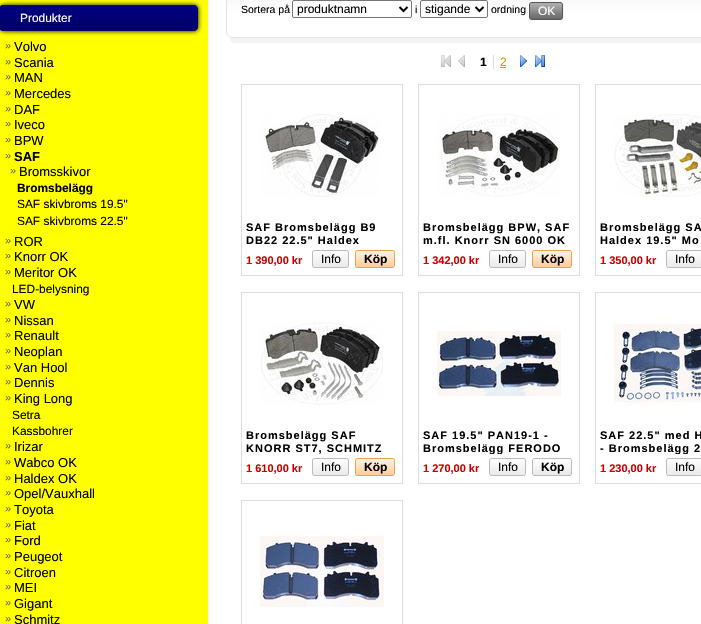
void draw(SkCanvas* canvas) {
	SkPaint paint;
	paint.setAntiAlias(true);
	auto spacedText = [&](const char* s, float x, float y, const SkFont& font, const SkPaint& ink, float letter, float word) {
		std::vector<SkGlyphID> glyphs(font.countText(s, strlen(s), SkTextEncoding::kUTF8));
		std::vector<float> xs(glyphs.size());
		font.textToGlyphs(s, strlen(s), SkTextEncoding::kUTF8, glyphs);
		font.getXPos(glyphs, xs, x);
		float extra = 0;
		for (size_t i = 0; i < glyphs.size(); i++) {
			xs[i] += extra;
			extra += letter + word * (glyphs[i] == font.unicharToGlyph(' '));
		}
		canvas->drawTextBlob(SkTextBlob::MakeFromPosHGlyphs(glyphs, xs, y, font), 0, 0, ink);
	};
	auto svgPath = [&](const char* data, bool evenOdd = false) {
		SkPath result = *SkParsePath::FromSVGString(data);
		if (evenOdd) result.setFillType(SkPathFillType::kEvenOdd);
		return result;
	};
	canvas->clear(0xffffffff);
	paint.setColor(0xffffff00);
	canvas->drawRect(SkRect::MakeXYWH(0, 0, 208, 624), paint);
	paint.setColor(0xff000000);
	paint.setMaskFilter(SkMaskFilter::MakeBlur(kNormal_SkBlurStyle, 2.5));
	canvas->drawRoundRect(SkRect::MakeXYWH(0, 5, 198, 26), 4, 4, paint);
	paint.setMaskFilter(nullptr);
	{
		const SkColor colors[] = {0xff010080, 0xff010069};
		const float stops[] = {0, 1};
		const SkPoint ends[] = {{99, 5}, {99, 31}};
		paint.setShader(SkGradientShader::MakeLinear(ends, colors, stops, 2, SkTileMode::kClamp));
		paint.setAlpha(255);
	}
	canvas->drawPath(svgPath("M2 5H194C196 5 198 7 198 9V27C198 29 196 31 194 31H2C1 31 0 30 0 29V7C0 6 1 5 2 5Z"), paint);
	SkFont f1(fontMgr->matchFamilyStyle("Liberation Sans", SkFontStyle::Normal()), 11.9);
	f1.setSubpixel(true);
	paint.setShader(nullptr);
	paint.setColor(0xffffffff);
	canvas->drawString("Produkter", 20, 22, f1, paint);
	SkFont f2(fontMgr->matchFamilyStyle("Liberation Sans", SkFontStyle::Normal()), 11);
	f2.setSubpixel(true);
	paint.setColor(0xff666666);
	canvas->drawString("»", 5, 49, f2, paint);
	SkFont f3(fontMgr->matchFamilyStyle("Liberation Sans", SkFontStyle::Normal()), 13);
	f3.setSubpixel(true);
	paint.setColor(0xff000000);
	canvas->drawString("Volvo", 14, 51, f3, paint);
	paint.setColor(0xff666666);
	canvas->drawString("»", 5, 65, f2, paint);
	paint.setColor(0xff000000);
	canvas->drawString("Scania", 14, 67, f3, paint);
	paint.setColor(0xff666666);
	canvas->drawString("»", 5, 80, f2, paint);
	paint.setColor(0xff000000);
	canvas->drawString("MAN", 14, 82, f3, paint);
	paint.setColor(0xff666666);
	canvas->drawString("»", 5, 96, f2, paint);
	paint.setColor(0xff000000);
	canvas->drawString("Mercedes", 14, 98, f3, paint);
	paint.setColor(0xff666666);
	canvas->drawString("»", 5, 112, f2, paint);
	paint.setColor(0xff000000);
	canvas->drawString("DAF", 14, 114, f3, paint);
	paint.setColor(0xff666666);
	canvas->drawString("»", 5, 127, f2, paint);
	paint.setColor(0xff000000);
	canvas->drawString("Iveco", 14, 129, f3, paint);
	paint.setColor(0xff666666);
	canvas->drawString("»", 5, 143, f2, paint);
	paint.setColor(0xff000000);
	canvas->drawString("BPW", 14, 145, f3, paint);
	paint.setColor(0xff666666);
	canvas->drawString("»", 5, 159, f2, paint);
	SkFont f4(fontMgr->matchFamilyStyle("Liberation Sans", SkFontStyle::Bold()), 13);
	f4.setSubpixel(true);
	paint.setColor(0xff000000);
	canvas->drawString("SAF", 14, 161, f4, paint);
	paint.setColor(0xff666666);
	canvas->drawString("»", 10, 174, f2, paint);
	paint.setColor(0xff000000);
	canvas->drawString("Bromsskivor", 19, 176, f3, paint);
	SkFont f5(fontMgr->matchFamilyStyle("Liberation Sans", SkFontStyle::Bold()), 11.9);
	f5.setSubpixel(true);
	canvas->drawString("Bromsbelägg", 17, 192, f5, paint);
	canvas->drawString("SAF skivbroms 19.5\"", 17, 208, f1, paint);
	canvas->drawString("SAF skivbroms 22.5\"", 17, 225, f1, paint);
	paint.setColor(0xff666666);
	canvas->drawString("»", 5, 244, f2, paint);
	paint.setColor(0xff000000);
	canvas->drawString("ROR", 14, 246, f3, paint);
	paint.setColor(0xff666666);
	canvas->drawString("»", 5, 259, f2, paint);
	paint.setColor(0xff000000);
	canvas->drawString("Knorr OK", 14, 261, f3, paint);
	paint.setColor(0xff666666);
	canvas->drawString("»", 5, 275, f2, paint);
	paint.setColor(0xff000000);
	canvas->drawString("Meritor OK", 14, 277, f3, paint);
	canvas->drawString("LED-belysning", 12, 293, f1, paint);
	paint.setColor(0xff666666);
	canvas->drawString("»", 5, 307, f2, paint);
	paint.setColor(0xff000000);
	canvas->drawString("VW", 14, 309, f3, paint);
	paint.setColor(0xff666666);
	canvas->drawString("»", 5, 323, f2, paint);
	paint.setColor(0xff000000);
	canvas->drawString("Nissan", 14, 325, f3, paint);
	paint.setColor(0xff666666);
	canvas->drawString("»", 5, 338, f2, paint);
	paint.setColor(0xff000000);
	canvas->drawString("Renault", 14, 340, f3, paint);
	paint.setColor(0xff666666);
	canvas->drawString("»", 5, 354, f2, paint);
	paint.setColor(0xff000000);
	canvas->drawString("Neoplan", 14, 356, f3, paint);
	paint.setColor(0xff666666);
	canvas->drawString("»", 5, 370, f2, paint);
	paint.setColor(0xff000000);
	canvas->drawString("Van Hool", 14, 372, f3, paint);
	paint.setColor(0xff666666);
	canvas->drawString("»", 5, 385, f2, paint);
	paint.setColor(0xff000000);
	canvas->drawString("Dennis", 14, 387, f3, paint);
	paint.setColor(0xff666666);
	canvas->drawString("»", 5, 401, f2, paint);
	paint.setColor(0xff000000);
	canvas->drawString("King Long", 14, 403, f3, paint);
	canvas->drawString("Setra", 12, 419, f1, paint);
	canvas->drawString("Kassbohrer", 12, 435, f1, paint);
	paint.setColor(0xff666666);
	canvas->drawString("»", 5, 449, f2, paint);
	paint.setColor(0xff000000);
	canvas->drawString("Irizar", 14, 451, f3, paint);
	paint.setColor(0xff666666);
	canvas->drawString("»", 5, 465, f2, paint);
	paint.setColor(0xff000000);
	canvas->drawString("Wabco OK", 14, 467, f3, paint);
	paint.setColor(0xff666666);
	canvas->drawString("»", 5, 481, f2, paint);
	paint.setColor(0xff000000);
	canvas->drawString("Haldex OK", 14, 483, f3, paint);
	paint.setColor(0xff666666);
	canvas->drawString("»", 5, 496, f2, paint);
	paint.setColor(0xff000000);
	canvas->drawString("Opel/Vauxhall", 14, 498, f3, paint);
	paint.setColor(0xff666666);
	canvas->drawString("»", 5, 512, f2, paint);
	paint.setColor(0xff000000);
	canvas->drawString("Toyota", 14, 514, f3, paint);
	paint.setColor(0xff666666);
	canvas->drawString("»", 5, 528, f2, paint);
	paint.setColor(0xff000000);
	canvas->drawString("Fiat", 14, 530, f3, paint);
	paint.setColor(0xff666666);
	canvas->drawString("»", 5, 543, f2, paint);
	paint.setColor(0xff000000);
	canvas->drawString("Ford", 14, 545, f3, paint);
	paint.setColor(0xff666666);
	canvas->drawString("»", 5, 559, f2, paint);
	paint.setColor(0xff000000);
	canvas->drawString("Peugeot", 14, 561, f3, paint);
	paint.setColor(0xff666666);
	canvas->drawString("»", 5, 575, f2, paint);
	paint.setColor(0xff000000);
	canvas->drawString("Citroen", 14, 577, f3, paint);
	paint.setColor(0xff666666);
	canvas->drawString("»", 5, 590, f2, paint);
	paint.setColor(0xff000000);
	canvas->drawString("MEI", 14, 592, f3, paint);
	paint.setColor(0xff666666);
	canvas->drawString("»", 5, 606, f2, paint);
	paint.setColor(0xff000000);
	canvas->drawString("Gigant", 14, 608, f3, paint);
	paint.setColor(0xff666666);
	canvas->drawString("»", 5, 622, f2, paint);
	paint.setColor(0xff000000);
	canvas->drawString("Schmitz", 14, 624, f3, paint);
	canvas->drawImageRect(SkImages::DeferredFromEncodedData(SkData::MakeFromFileName("img1.png")), SkRect::MakeXYWH(226, 32, 475, 11), SkSamplingOptions());
	canvas->drawImageRect(SkImages::DeferredFromEncodedData(SkData::MakeFromFileName("img2.png")), SkRect::MakeXYWH(226, 0, 475, 32), SkSamplingOptions());
	SkFont f6(fontMgr->matchFamilyStyle("Liberation Sans", SkFontStyle::Normal()), 10.5);
	f6.setSubpixel(true);
	canvas->drawString("Sortera på", 241, 13, f6, paint);
	paint.setColor(0xffffffff);
	canvas->drawRoundRect(SkRect::MakeXYWH(292.5, 0.5, 119, 17), 1.5, 1.5, paint);
	paint.setStroke(true);
	paint.setStrokeWidth(1);
	paint.setColor(0xff767676);
	canvas->drawRoundRect(SkRect::MakeXYWH(292.5, 0.5, 119, 17), 1.5, 1.5, paint);
	paint.setStrokeWidth(2);
	paint.setColor(0xff000000);
	canvas->drawPath(svgPath("M399.5 7L403.5 11L407.5 7"), paint);
	SkFont f7(fontMgr->matchFamilyStyle("Liberation Sans", SkFontStyle::Normal()), 12);
	f7.setSubpixel(true);
	paint.setStroke(false);
	canvas->drawString("produktnamn", 297, 13, f7, paint);
	canvas->drawString("i", 415, 13, f6, paint);
	paint.setColor(0xffffffff);
	canvas->drawRoundRect(SkRect::MakeXYWH(420.5, 0.5, 67, 17), 1.5, 1.5, paint);
	paint.setStroke(true);
	paint.setStrokeWidth(1);
	paint.setColor(0xff767676);
	canvas->drawRoundRect(SkRect::MakeXYWH(420.5, 0.5, 67, 17), 1.5, 1.5, paint);
	paint.setStrokeWidth(2);
	paint.setColor(0xff000000);
	canvas->drawPath(svgPath("M475.5 7L479.5 11L483.5 7"), paint);
	paint.setStroke(false);
	canvas->drawString("stigande", 425, 13, f7, paint);
	canvas->drawString("ordning", 491, 13, f6, paint);
	canvas->drawImageRect(SkImages::DeferredFromEncodedData(SkData::MakeFromFileName("img3.png")), SkRect::MakeXYWH(529, 2, 4, 18), SkSamplingOptions());
	canvas->drawImageRect(SkImages::DeferredFromEncodedData(SkData::MakeFromFileName("img4.png")), SkRect::MakeXYWH(533, 2, 31, 18), SkSamplingOptions());
	paint.setColor(0xffffffff);
	canvas->drawString("OK", 538, 15, f7, paint);
	canvas->drawImageRect(SkImages::DeferredFromEncodedData(SkData::MakeFromFileName("img5.png")), SkRect::MakeXYWH(441, 55, 10, 12), SkSamplingOptions());
	canvas->drawImageRect(SkImages::DeferredFromEncodedData(SkData::MakeFromFileName("img6.png")), SkRect::MakeXYWH(458, 55, 7, 12), SkSamplingOptions());
	SkFont f8(fontMgr->matchFamilyStyle("Liberation Sans", SkFontStyle::Bold()), 12);
	f8.setSubpixel(true);
	paint.setColor(0xff000000);
	canvas->drawString("1", 480, 66, f8, paint);
	paint.setColor(0xffcc9900);
	canvas->drawString("2", 500, 66, f7, paint);
	paint.setColor(0xffdddddd);
	canvas->drawRect(SkRect::MakeXYWH(493, 55, 1, 14), paint);
	paint.setColor(0xffcc9900);
	canvas->drawRect(SkRect::MakeXYWH(500, 67, 6, 1), paint);
	canvas->drawImageRect(SkImages::DeferredFromEncodedData(SkData::MakeFromFileName("img7.png")), SkRect::MakeXYWH(520, 55, 7, 12), SkSamplingOptions());
	canvas->drawImageRect(SkImages::DeferredFromEncodedData(SkData::MakeFromFileName("img8.png")), SkRect::MakeXYWH(535, 55, 10, 12), SkSamplingOptions());
	paint.setStroke(true);
	paint.setStrokeWidth(1);
	paint.setColor(0xffdddddd);
	canvas->drawRect(SkRect::MakeXYWH(241.5, 84.5, 161, 191), paint);
	canvas->drawImageRect(SkImages::DeferredFromEncodedData(SkData::MakeFromFileName("img9.png")), SkRect::MakeXYWH(260, 114, 120, 83), SkSamplingOptions());
	SkFont f9(fontMgr->matchFamilyStyle("Liberation Sans", SkFontStyle::Bold()), 11);
	f9.setSubpixel(true);
	paint.setStroke(false);
	paint.setColor(0xff000000);
	spacedText("SAF Bromsbelägg B9", 246, 231, f9, paint, 1, 0);
	spacedText("DB22 22.5\" Haldex", 246, 244, f9, paint, 1, 0);
	paint.setColor(0xffcc0000);
	canvas->drawString("1 390,00 kr", 246, 264, f9, paint);
	canvas->drawImageRect(SkImages::DeferredFromEncodedData(SkData::MakeFromFileName("img10.png")), SkRect::MakeXYWH(312, 250, 4, 18), SkSamplingOptions());
	canvas->drawImageRect(SkImages::DeferredFromEncodedData(SkData::MakeFromFileName("img11.png")), SkRect::MakeXYWH(316, 250, 33, 18), SkSamplingOptions());
	paint.setColor(0xff000000);
	canvas->drawString("Info", 321, 263, f7, paint);
	canvas->drawImageRect(SkImages::DeferredFromEncodedData(SkData::MakeFromFileName("img12.png")), SkRect::MakeXYWH(355, 250, 4, 18), SkSamplingOptions());
	canvas->drawImageRect(SkImages::DeferredFromEncodedData(SkData::MakeFromFileName("img13.png")), SkRect::MakeXYWH(359, 250, 37, 18), SkSamplingOptions());
	canvas->drawString("Köp", 364, 263, f8, paint);
	paint.setStroke(true);
	paint.setColor(0xffdddddd);
	canvas->drawRect(SkRect::MakeXYWH(418.5, 84.5, 161, 191), paint);
	canvas->drawImageRect(SkImages::DeferredFromEncodedData(SkData::MakeFromFileName("img14.png")), SkRect::MakeXYWH(437, 114, 124, 83), SkSamplingOptions());
	paint.setStroke(false);
	paint.setColor(0xff000000);
	spacedText("Bromsbelägg BPW, SAF", 423, 231, f9, paint, 1, 0);
	spacedText("m.fl. Knorr SN 6000 OK", 423, 244, f9, paint, 1, 0);
	paint.setColor(0xffcc0000);
	canvas->drawString("1 342,00 kr", 423, 264, f9, paint);
	canvas->drawImageRect(SkImages::DeferredFromEncodedData(SkData::MakeFromFileName("img10.png")), SkRect::MakeXYWH(489, 250, 4, 18), SkSamplingOptions());
	canvas->drawImageRect(SkImages::DeferredFromEncodedData(SkData::MakeFromFileName("img11.png")), SkRect::MakeXYWH(493, 250, 33, 18), SkSamplingOptions());
	paint.setColor(0xff000000);
	canvas->drawString("Info", 498, 263, f7, paint);
	canvas->drawImageRect(SkImages::DeferredFromEncodedData(SkData::MakeFromFileName("img12.png")), SkRect::MakeXYWH(532, 250, 4, 18), SkSamplingOptions());
	canvas->drawImageRect(SkImages::DeferredFromEncodedData(SkData::MakeFromFileName("img13.png")), SkRect::MakeXYWH(536, 250, 37, 18), SkSamplingOptions());
	canvas->drawString("Köp", 541, 263, f8, paint);
	paint.setStroke(true);
	paint.setColor(0xffdddddd);
	canvas->drawRect(SkRect::MakeXYWH(595.5, 84.5, 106, 191), paint);
	canvas->drawImageRect(SkImages::DeferredFromEncodedData(SkData::MakeFromFileName("img15.png")), SkRect::MakeXYWH(614, 114, 87, 83), SkSamplingOptions());
	paint.setStroke(false);
	paint.setColor(0xff000000);
	spacedText("Bromsbelägg SA", 600, 231, f9, paint, 1, 0);
	spacedText("Haldex 19.5\" Mo", 600, 244, f9, paint, 1, 0);
	paint.setColor(0xffcc0000);
	canvas->drawString("1 350,00 kr", 600, 264, f9, paint);
	canvas->drawImageRect(SkImages::DeferredFromEncodedData(SkData::MakeFromFileName("img10.png")), SkRect::MakeXYWH(666, 250, 4, 18), SkSamplingOptions());
	canvas->drawImageRect(SkImages::DeferredFromEncodedData(SkData::MakeFromFileName("img16.png")), SkRect::MakeXYWH(670, 250, 31, 18), SkSamplingOptions());
	paint.setColor(0xff000000);
	canvas->drawString("Info", 675, 263, f7, paint);
	paint.setStroke(true);
	paint.setColor(0xffdddddd);
	canvas->drawRect(SkRect::MakeXYWH(241.5, 292.5, 161, 191), paint);
	canvas->drawImageRect(SkImages::DeferredFromEncodedData(SkData::MakeFromFileName("img17.png")), SkRect::MakeXYWH(260, 322, 123, 83), SkSamplingOptions());
	paint.setStroke(false);
	paint.setColor(0xff000000);
	spacedText("Bromsbelägg SAF", 246, 439, f9, paint, 1, 0);
	spacedText("KNORR ST7, SCHMITZ", 246, 452, f9, paint, 1, 0);
	paint.setColor(0xffcc0000);
	canvas->drawString("1 610,00 kr", 246, 472, f9, paint);
	canvas->drawImageRect(SkImages::DeferredFromEncodedData(SkData::MakeFromFileName("img10.png")), SkRect::MakeXYWH(312, 458, 4, 18), SkSamplingOptions());
	canvas->drawImageRect(SkImages::DeferredFromEncodedData(SkData::MakeFromFileName("img11.png")), SkRect::MakeXYWH(316, 458, 33, 18), SkSamplingOptions());
	paint.setColor(0xff000000);
	canvas->drawString("Info", 321, 471, f7, paint);
	canvas->drawImageRect(SkImages::DeferredFromEncodedData(SkData::MakeFromFileName("img12.png")), SkRect::MakeXYWH(355, 458, 4, 18), SkSamplingOptions());
	canvas->drawImageRect(SkImages::DeferredFromEncodedData(SkData::MakeFromFileName("img13.png")), SkRect::MakeXYWH(359, 458, 37, 18), SkSamplingOptions());
	canvas->drawString("Köp", 364, 471, f8, paint);
	paint.setStroke(true);
	paint.setColor(0xffdddddd);
	canvas->drawRect(SkRect::MakeXYWH(418.5, 292.5, 161, 191), paint);
	canvas->drawImageRect(SkImages::DeferredFromEncodedData(SkData::MakeFromFileName("img18.png")), SkRect::MakeXYWH(437, 331, 124, 66), SkSamplingOptions());
	paint.setStroke(false);
	paint.setColor(0xff000000);
	spacedText("SAF 19.5\" PAN19-1 -", 423, 439, f9, paint, 1, 0);
	canvas->save();
	canvas->clipRect(SkRect::MakeXYWH(423, 429, 152, 25));
	spacedText("Bromsbelägg FERODO", 423, 452, f9, paint, 1, 0);
	canvas->restore();
	paint.setColor(0xffcc0000);
	canvas->drawString("1 270,00 kr", 423, 472, f9, paint);
	canvas->drawImageRect(SkImages::DeferredFromEncodedData(SkData::MakeFromFileName("img10.png")), SkRect::MakeXYWH(489, 458, 4, 18), SkSamplingOptions());
	canvas->drawImageRect(SkImages::DeferredFromEncodedData(SkData::MakeFromFileName("img11.png")), SkRect::MakeXYWH(493, 458, 33, 18), SkSamplingOptions());
	paint.setColor(0xff000000);
	canvas->drawString("Info", 498, 471, f7, paint);
	canvas->drawImageRect(SkImages::DeferredFromEncodedData(SkData::MakeFromFileName("img10.png")), SkRect::MakeXYWH(532, 458, 4, 18), SkSamplingOptions());
	canvas->drawImageRect(SkImages::DeferredFromEncodedData(SkData::MakeFromFileName("img19.png")), SkRect::MakeXYWH(536, 458, 36, 18), SkSamplingOptions());
	canvas->drawString("Köp", 541, 471, f8, paint);
	paint.setStroke(true);
	paint.setColor(0xffdddddd);
	canvas->drawRect(SkRect::MakeXYWH(595.5, 292.5, 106, 191), paint);
	canvas->drawImageRect(SkImages::DeferredFromEncodedData(SkData::MakeFromFileName("img20.png")), SkRect::MakeXYWH(614, 318, 87, 89), SkSamplingOptions());
	paint.setStroke(false);
	paint.setColor(0xff000000);
	spacedText("SAF 22.5\" med H", 600, 439, f9, paint, 1, 0);
	canvas->save();
	canvas->clipRect(SkRect::MakeXYWH(600, 429, 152, 25));
	spacedText("- Bromsbelägg 2", 600, 452, f9, paint, 1, 0);
	canvas->restore();
	paint.setColor(0xffcc0000);
	canvas->drawString("1 230,00 kr", 600, 472, f9, paint);
	canvas->drawImageRect(SkImages::DeferredFromEncodedData(SkData::MakeFromFileName("img10.png")), SkRect::MakeXYWH(666, 458, 4, 18), SkSamplingOptions());
	canvas->drawImageRect(SkImages::DeferredFromEncodedData(SkData::MakeFromFileName("img16.png")), SkRect::MakeXYWH(670, 458, 31, 18), SkSamplingOptions());
	paint.setColor(0xff000000);
	canvas->drawString("Info", 675, 471, f7, paint);
	paint.setStroke(true);
	paint.setColor(0xffdddddd);
	canvas->drawRect(SkRect::MakeXYWH(241.5, 500.5, 161, 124), paint);
	canvas->drawImageRect(SkImages::DeferredFromEncodedData(SkData::MakeFromFileName("img21.png")), SkRect::MakeXYWH(260, 536, 124, 71), SkSamplingOptions());
}
